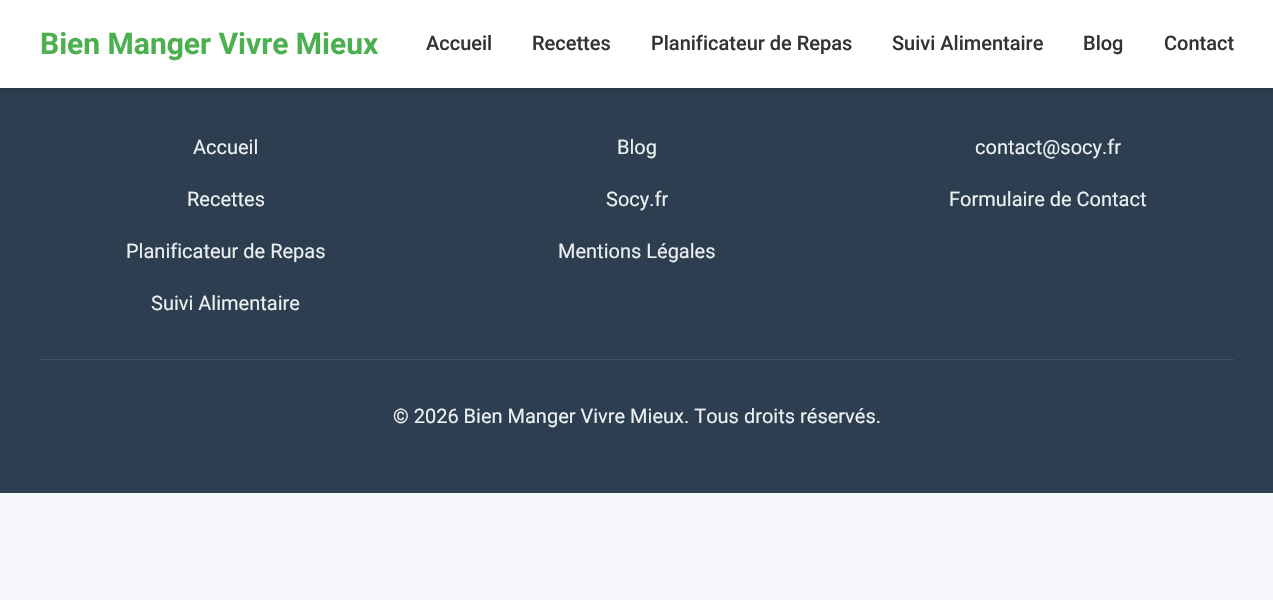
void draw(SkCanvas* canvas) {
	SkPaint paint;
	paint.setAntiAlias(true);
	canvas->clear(0xfff5f7fa);
	paint.setColor(0xff2c3e50);
	canvas->drawRect(SkRect::MakeXYWH(0, 88, 1273, 405), paint);
	paint.setColor(0x1a000000);
	paint.setMaskFilter(SkMaskFilter::MakeBlur(kNormal_SkBlurStyle, 2.5));
	canvas->drawRect(SkRect::MakeXYWH(0, 3, 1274, 87), paint);
	paint.setMaskFilter(nullptr);
	paint.setColor(0xffffffff);
	canvas->drawRect(SkRect::MakeXYWH(0, 0, 1273, 88), paint);
	SkFont f1(fontMgr->matchFamilyStyle("Roboto", SkFontStyle::Bold()), 30);
	f1.setSubpixel(true);
	paint.setColor(0xff4caf50);
	canvas->drawString("Bien Manger Vivre Mieux", 40, 54, f1, paint);
	SkFont f2(fontMgr->matchFamilyStyle("Roboto", SkFontStyle(500, SkFontStyle::kNormal_Width, SkFontStyle::kUpright_Slant)), 20);
	f2.setSubpixel(true);
	paint.setColor(0xff333333);
	canvas->drawString("Accueil", 426, 50, f2, paint);
	canvas->drawString("Recettes", 532, 50, f2, paint);
	canvas->drawString("Planificateur de Repas", 651, 50, f2, paint);
	canvas->drawString("Suivi Alimentaire", 892, 50, f2, paint);
	canvas->drawString("Blog", 1083, 50, f2, paint);
	canvas->drawString("Contact", 1164, 50, f2, paint);
	SkFont f3(fontMgr->matchFamilyStyle("Roboto", SkFontStyle::Normal()), 20);
	f3.setSubpixel(true);
	paint.setColor(0xffecf0f1);
	canvas->drawString("Accueil", 193, 154, f3, paint);
	canvas->drawString("Recettes", 187, 206, f3, paint);
	canvas->drawString("Planificateur de Repas", 126, 258, f3, paint);
	canvas->drawString("Suivi Alimentaire", 151, 310, f3, paint);
	canvas->drawString("Blog", 617, 154, f3, paint);
	canvas->drawString("Socy.fr", 606, 206, f3, paint);
	canvas->drawString("Mentions Légales", 558, 258, f3, paint);
	canvas->drawString("contact@socy.fr", 975, 154, f3, paint);
	canvas->drawString("Formulaire de Contact", 949, 206, f3, paint);
	paint.setColor(0xff415162);
	canvas->drawRect(SkRect::MakeXYWH(40, 359, 1194, 1), paint);
	paint.setColor(0xffecf0f1);
	canvas->drawString("© 2026 Bien Manger Vivre Mieux. Tous droits réservés.", 393, 423, f3, paint);
}
